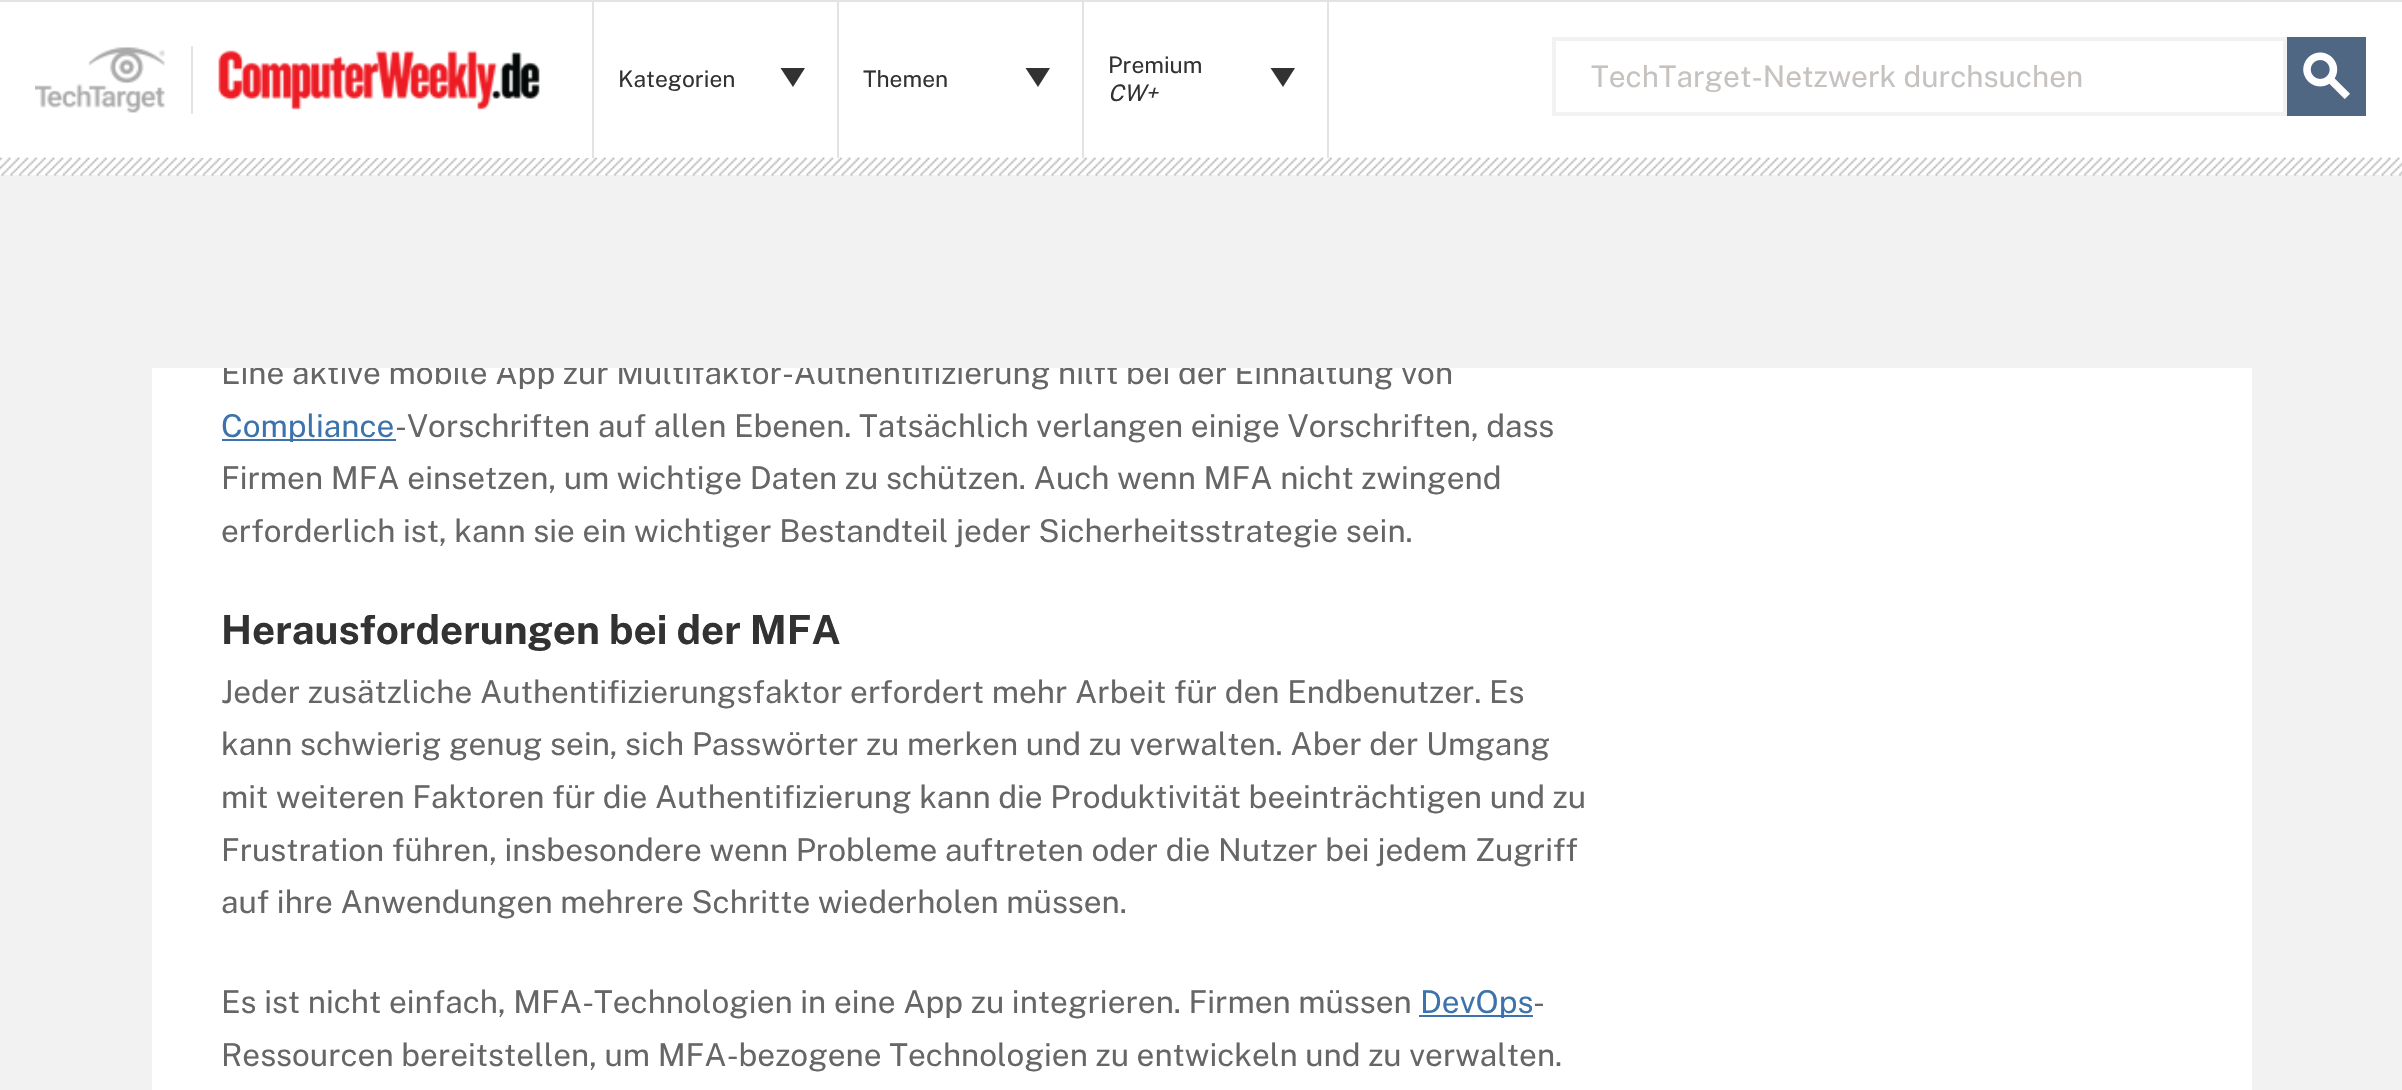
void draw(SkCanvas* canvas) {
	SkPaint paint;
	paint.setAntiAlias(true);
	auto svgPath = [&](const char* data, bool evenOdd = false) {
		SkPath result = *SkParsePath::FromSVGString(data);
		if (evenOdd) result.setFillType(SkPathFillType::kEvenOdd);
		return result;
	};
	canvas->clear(0xfff2f2f2);
	paint.setColor(0xffffffff);
	canvas->drawRect(SkRect::MakeXYWH(0, 2, 2402, 173), paint);
	canvas->drawImageRect(SkImages::DeferredFromEncodedData(SkData::MakeFromFileName("img1.png")), SkRect::MakeXYWH(0, 157, 2402, 19), SkSamplingOptions());
	paint.setColor(0xffe3e3e3);
	canvas->drawRect(SkRect::MakeXYWH(0, 0, 593, 2), paint);
	canvas->drawImageRect(SkImages::DeferredFromEncodedData(SkData::MakeFromFileName("img2.png")), SkRect::MakeXYWH(35, 47, 130, 66), SkSamplingOptions());
	canvas->drawRect(SkRect::MakeXYWH(191, 46, 2, 68), paint);
	paint.setColor(0xffffffff);
	canvas->drawRect(SkRect::MakeXYWH(193, 157, 396, 1), paint);
	canvas->drawImageRect(SkImages::DeferredFromEncodedData(SkData::MakeFromFileName("img3.png")), SkRect::MakeXYWH(218, 50, 322, 60), SkSamplingOptions());
	paint.setColor(0xffe3e3e3);
	canvas->drawRect(SkRect::MakeXYWH(592, 0, 2, 158), paint);
	canvas->drawRect(SkRect::MakeXYWH(594, 0, 1808, 2), paint);
	canvas->drawRect(SkRect::MakeXYWH(837, 2, 2, 156), paint);
	SkFont f1(fontMgr->matchFamilyStyle("Public Sans", SkFontStyle::Normal()), 22.75);
	f1.setSubpixel(true);
	paint.setColor(0xff323232);
	canvas->drawString("Kategorien", 618, 87, f1, paint);
	canvas->drawPath(svgPath("M805 68L793 87L780.5 68Z"), paint);
	paint.setColor(0xffe3e3e3);
	canvas->drawRect(SkRect::MakeXYWH(1082, 2, 2, 156), paint);
	paint.setColor(0xff323232);
	canvas->drawString("Themen", 863, 87, f1, paint);
	canvas->drawPath(svgPath("M1050 68L1038 87L1025.5 68Z"), paint);
	paint.setColor(0xffe3e3e3);
	canvas->drawRect(SkRect::MakeXYWH(1327, 2, 2, 156), paint);
	paint.setColor(0xff323232);
	canvas->drawString("Premium", 1108, 73, f1, paint);
	SkFont f2(fontMgr->matchFamilyStyle("Public Sans", SkFontStyle::Italic()), 22.75);
	f2.setSubpixel(true);
	canvas->drawString("CW+", 1108, 101, f2, paint);
	canvas->drawPath(svgPath("M1295 68L1283 87L1270.5 68Z"), paint);
	paint.setStroke(true);
	paint.setStrokeWidth(4);
	paint.setColor(0xfff2f2f2);
	canvas->drawRect(SkRect::MakeXYWH(1554, 39, 731, 75), paint);
	SkFont f3(fontMgr->matchFamilyStyle("Public Sans", SkFontStyle::Normal()), 29.75);
	f3.setSubpixel(true);
	paint.setStroke(false);
	paint.setColor(0xffc6c2bf);
	canvas->drawString("TechTarget-Netzwerk durchsuchen", 1591, 87, f3, paint);
	paint.setColor(0xff506784);
	canvas->drawRect(SkRect::MakeXYWH(2287, 37, 79, 79), paint);
	canvas->drawImageRect(SkImages::DeferredFromEncodedData(SkData::MakeFromFileName("img4.png")), SkRect::MakeXYWH(2303, 52, 47, 47), SkSamplingOptions());
	paint.setColor(0xffffffff);
	canvas->drawRect(SkRect::MakeXYWH(152, 368, 2100, 722), paint);
	SkFont f4(fontMgr->matchFamilyStyle("Public Sans", SkFontStyle::Normal()), 31.5);
	f4.setSubpixel(true);
	paint.setColor(0xff666666);
	canvas->drawString("Eine aktive mobile App zur Multifaktor-Authentifizierung hilft bei der Einhaltung von", 221, 384, f4, paint);
	paint.setColor(0xff3d73ad);
	canvas->drawRect(SkRect::MakeXYWH(222, 439, 174, 2), paint);
	canvas->drawString("Compliance", 221, 437, f4, paint);
	paint.setColor(0xff666666);
	canvas->drawString("-Vorschriften auf allen Ebenen. Tatsächlich verlangen einige Vorschriften, dass", 395, 437, f4, paint);
	canvas->drawString("Firmen MFA einsetzen, um wichtige Daten zu schützen. Auch wenn MFA nicht zwingend", 221, 489, f4, paint);
	canvas->drawString("erforderlich ist, kann sie ein wichtiger Bestandteil jeder Sicherheitsstrategie sein.", 221, 542, f4, paint);
	SkFont f5(fontMgr->matchFamilyStyle("Public Sans", SkFontStyle::Bold()), 40.25);
	f5.setSubpixel(true);
	paint.setColor(0xff323232);
	canvas->drawString("Herausforderungen bei der MFA", 221, 644, f5, paint);
	paint.setColor(0xff666666);
	canvas->drawString("Jeder zusätzliche Authentifizierungsfaktor erfordert mehr Arbeit für den Endbenutzer. Es", 221, 703, f4, paint);
	canvas->drawString("kann schwierig genug sein, sich Passwörter zu merken und zu verwalten. Aber der Umgang", 221, 755, f4, paint);
	canvas->drawString("mit weiteren Faktoren für die Authentifizierung kann die Produktivität beeinträchtigen und zu", 221, 808, f4, paint);
	canvas->drawString("Frustration führen, insbesondere wenn Probleme auftreten oder die Nutzer bei jedem Zugriff", 221, 861, f4, paint);
	canvas->drawString("auf ihre Anwendungen mehrere Schritte wiederholen müssen.", 221, 913, f4, paint);
	canvas->drawString("Es ist nicht einfach, MFA-Technologien in eine App zu integrieren. Firmen müssen", 221, 1013, f4, paint);
	paint.setColor(0xff3d73ad);
	canvas->drawRect(SkRect::MakeXYWH(1419, 1015, 114, 2), paint);
	canvas->drawString("DevOps", 1420, 1013, f4, paint);
	paint.setColor(0xff666666);
	canvas->drawString("-", 1533, 1013, f4, paint);
	canvas->drawString("Ressourcen bereitstellen, um MFA-bezogene Technologien zu entwickeln und zu verwalten.", 221, 1066, f4, paint);
	paint.setColor(0xfff2f2f2);
	canvas->drawRect(SkRect::MakeXYWH(224, 360, 1224, 8), paint);
}
